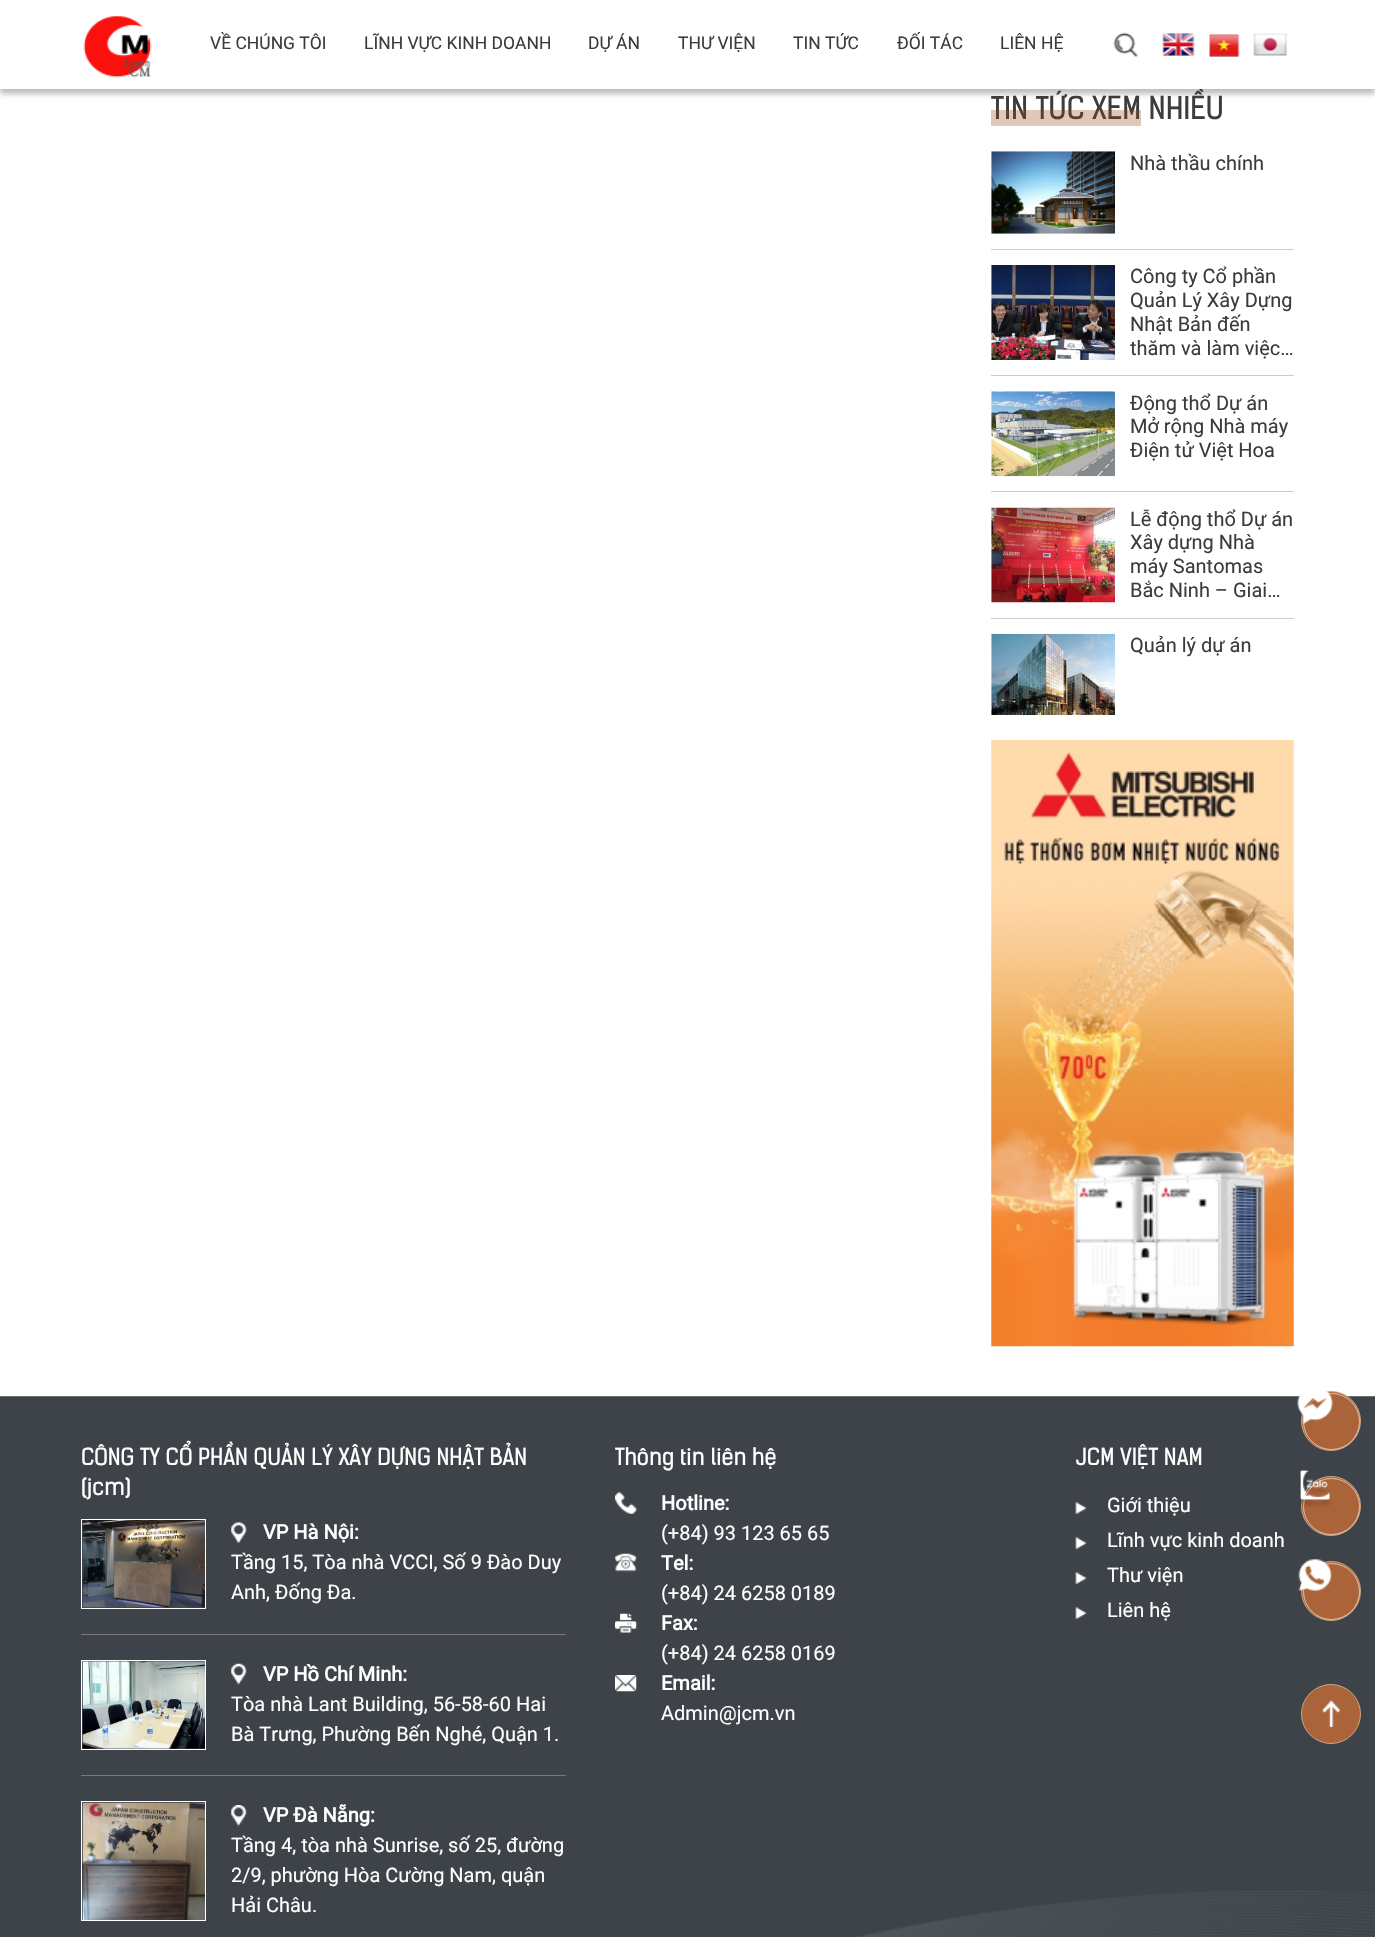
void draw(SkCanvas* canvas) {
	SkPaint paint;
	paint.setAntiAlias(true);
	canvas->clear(0xffffffff);
	paint.setColor(0x40000000);
	paint.setMaskFilter(SkMaskFilter::MakeBlur(kNormal_SkBlurStyle, 2.5));
	canvas->drawRect(SkRect::MakeXYWH(0, 5, 1375, 89), paint);
	paint.setMaskFilter(nullptr);
	SkFont f1(fontMgr->matchFamilyStyle("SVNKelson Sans", SkFontStyle::Normal()), 30);
	f1.setSubpixel(true);
	paint.setColor(0xff3c3c3c);
	canvas->drawString("TIN TỨC XEM NHIỀU", 991, 119, f1, paint);
	paint.setColor(0xffffffff);
	canvas->drawRect(SkRect::MakeXYWH(0, 1, 1375, 88), paint);
	canvas->drawImageRect(SkImages::DeferredFromEncodedData(SkData::MakeFromFileName("img1.png")), SkRect::MakeXYWH(83, 16, 69, 62), SkSamplingOptions());
	SkFont f2(fontMgr->matchFamilyStyle("Roboto", SkFontStyle::Normal()), 17.5);
	f2.setSubpixel(true);
	paint.setColor(0xff3c3c3c);
	canvas->drawString("VỀ CHÚNG TÔI", 210, 49, f2, paint);
	canvas->drawString("LĨNH VỰC KINH DOANH", 364, 49, f2, paint);
	canvas->drawString("DỰ ÁN", 588, 49, f2, paint);
	canvas->drawString("THƯ VIỆN", 678, 49, f2, paint);
	canvas->drawString("TIN TỨC", 793, 49, f2, paint);
	canvas->drawString("ĐỐI TÁC", 897, 49, f2, paint);
	canvas->drawString("LIÊN HỆ", 1000, 49, f2, paint);
	canvas->drawImageRect(SkImages::DeferredFromEncodedData(SkData::MakeFromFileName("img2.png")), SkRect::MakeXYWH(1113, 32, 25, 26), SkSamplingOptions());
	canvas->drawImageRect(SkImages::DeferredFromEncodedData(SkData::MakeFromFileName("img3.png")), SkRect::MakeXYWH(1162, 33, 33, 23), SkSamplingOptions());
	canvas->drawImageRect(SkImages::DeferredFromEncodedData(SkData::MakeFromFileName("img4.png")), SkRect::MakeXYWH(1209, 34, 31, 23), SkSamplingOptions());
	canvas->drawImageRect(SkImages::DeferredFromEncodedData(SkData::MakeFromFileName("img5.png")), SkRect::MakeXYWH(1253, 33, 34, 23), SkSamplingOptions());
	paint.setColor(0x4d974617);
	canvas->drawRect(SkRect::MakeXYWH(991, 110, 150, 16), paint);
	canvas->drawImageRect(SkImages::DeferredFromEncodedData(SkData::MakeFromFileName("img6.png")), SkRect::MakeXYWH(991, 151, 124, 83), SkSamplingOptions());
	SkFont f3(fontMgr->matchFamilyStyle("Roboto", SkFontStyle::Normal()), 20);
	f3.setSubpixel(true);
	paint.setColor(0xff3c3c3c);
	canvas->drawString("Nhà thầu chính", 1130, 170, f3, paint);
	paint.setColor(0xffcccccc);
	canvas->drawRect(SkRect::MakeXYWH(991, 249, 303, 1), paint);
	canvas->drawImageRect(SkImages::DeferredFromEncodedData(SkData::MakeFromFileName("img7.png")), SkRect::MakeXYWH(991, 265, 124, 95), SkSamplingOptions());
	paint.setColor(0xff3c3c3c);
	canvas->drawString("Công ty Cổ phần", 1130, 283, f3, paint);
	canvas->drawString("Quản Lý Xây Dựng", 1130, 307, f3, paint);
	canvas->drawString("Nhật Bản đến", 1130, 331, f3, paint);
	canvas->drawString("thăm và làm việc…", 1130, 355, f3, paint);
	paint.setColor(0xffcccccc);
	canvas->drawRect(SkRect::MakeXYWH(991, 375, 303, 1), paint);
	canvas->drawImageRect(SkImages::DeferredFromEncodedData(SkData::MakeFromFileName("img8.png")), SkRect::MakeXYWH(991, 391, 124, 86), SkSamplingOptions());
	paint.setColor(0xff3c3c3c);
	canvas->drawString("Động thổ Dự án", 1130, 410, f3, paint);
	canvas->drawString("Mở rộng Nhà máy", 1130, 433, f3, paint);
	canvas->drawString("Điện tử Việt Hoa", 1130, 457, f3, paint);
	paint.setColor(0xffcccccc);
	canvas->drawRect(SkRect::MakeXYWH(991, 491, 303, 1), paint);
	canvas->drawImageRect(SkImages::DeferredFromEncodedData(SkData::MakeFromFileName("img9.png")), SkRect::MakeXYWH(991, 507, 124, 96), SkSamplingOptions());
	paint.setColor(0xff3c3c3c);
	canvas->drawString("Lễ động thổ Dự án", 1130, 526, f3, paint);
	canvas->drawString("Xây dựng Nhà", 1130, 549, f3, paint);
	canvas->drawString("máy Santomas", 1130, 573, f3, paint);
	canvas->drawString("Bắc Ninh – Giai…", 1130, 597, f3, paint);
	paint.setColor(0xffcccccc);
	canvas->drawRect(SkRect::MakeXYWH(991, 618, 303, 1), paint);
	canvas->drawImageRect(SkImages::DeferredFromEncodedData(SkData::MakeFromFileName("img10.png")), SkRect::MakeXYWH(991, 633, 124, 82), SkSamplingOptions());
	paint.setColor(0xff3c3c3c);
	canvas->drawString("Quản lý dự án", 1130, 652, f3, paint);
	canvas->drawImageRect(SkImages::DeferredFromEncodedData(SkData::MakeFromFileName("img11.png")), SkRect::MakeXYWH(991, 740, 303, 607), SkSamplingOptions());
	canvas->drawImageRect(SkImages::DeferredFromEncodedData(SkData::MakeFromFileName("img12.png")), SkRect::MakeXYWH(0, 1396, 1375, 541), SkSamplingOptions());
	SkFont f4(fontMgr->matchFamilyStyle("SVNKelson Sans", SkFontStyle::Normal()), 22.5);
	f4.setSubpixel(true);
	paint.setColor(0xffffffff);
	canvas->drawString("CÔNG TY CỔ PHẦN QUẢN LÝ XÂY DỰNG NHẬT BẢN", 81, 1465, f4, paint);
	canvas->drawString("(jcm)", 81, 1495, f4, paint);
	paint.setColor(0xff777b7f);
	canvas->drawRect(SkRect::MakeXYWH(81, 1634, 485, 1), paint);
	paint.setStroke(true);
	paint.setStrokeWidth(1);
	paint.setColor(0xffffffff);
	canvas->drawRect(SkRect::MakeXYWH(81.5, 1519.5, 124, 89), paint);
	canvas->drawImageRect(SkImages::DeferredFromEncodedData(SkData::MakeFromFileName("img13.png")), SkRect::MakeXYWH(82, 1520, 123, 88), SkSamplingOptions());
	canvas->drawImageRect(SkImages::DeferredFromEncodedData(SkData::MakeFromFileName("img14.png")), SkRect::MakeXYWH(231, 1522, 16, 22), SkSamplingOptions());
	SkFont f5(fontMgr->matchFamilyStyle("Roboto", SkFontStyle::Bold()), 20);
	f5.setSubpixel(true);
	paint.setStroke(false);
	canvas->drawString("VP Hà Nội:", 263, 1539, f5, paint);
	canvas->drawString("Tầng 15, Tòa nhà VCCI, Số 9 Đào Duy", 231, 1569, f3, paint);
	canvas->drawString("Anh, Đống Đa.", 231, 1599, f3, paint);
	paint.setColor(0xff777b7f);
	canvas->drawRect(SkRect::MakeXYWH(81, 1775, 485, 1), paint);
	paint.setStroke(true);
	paint.setColor(0xffffffff);
	canvas->drawRect(SkRect::MakeXYWH(81.5, 1660.5, 124, 89), paint);
	canvas->drawImageRect(SkImages::DeferredFromEncodedData(SkData::MakeFromFileName("img15.png")), SkRect::MakeXYWH(82, 1661, 123, 88), SkSamplingOptions());
	canvas->drawImageRect(SkImages::DeferredFromEncodedData(SkData::MakeFromFileName("img16.png")), SkRect::MakeXYWH(231, 1663, 16, 22), SkSamplingOptions());
	paint.setStroke(false);
	canvas->drawString("VP Hồ Chí Minh:", 263, 1681, f5, paint);
	canvas->drawString("Tòa nhà Lant Building, 56-58-60 Hai", 231, 1711, f3, paint);
	canvas->drawString("Bà Trưng, Phường Bến Nghé, Quận 1.", 231, 1741, f3, paint);
	paint.setStroke(true);
	canvas->drawRect(SkRect::MakeXYWH(81.5, 1801.5, 124, 119), paint);
	canvas->drawImageRect(SkImages::DeferredFromEncodedData(SkData::MakeFromFileName("img17.png")), SkRect::MakeXYWH(82, 1802, 123, 118), SkSamplingOptions());
	canvas->drawImageRect(SkImages::DeferredFromEncodedData(SkData::MakeFromFileName("img18.png")), SkRect::MakeXYWH(231, 1805, 16, 22), SkSamplingOptions());
	paint.setStroke(false);
	canvas->drawString("VP Đà Nẵng:", 263, 1822, f5, paint);
	canvas->drawString("Tầng 4, tòa nhà Sunrise, số 25, đường", 231, 1852, f3, paint);
	canvas->drawString("2/9, phường Hòa Cường Nam, quận", 231, 1882, f3, paint);
	canvas->drawString("Hải Châu.", 231, 1912, f3, paint);
	canvas->drawString("Thông tin liên hệ", 615, 1465, f4, paint);
	canvas->drawImageRect(SkImages::DeferredFromEncodedData(SkData::MakeFromFileName("img19.png")), SkRect::MakeXYWH(615, 1492, 22, 22), SkSamplingOptions());
	canvas->drawString("Hotline:", 661, 1510, f5, paint);
	canvas->drawString("(+84) 93 123 65 65", 661, 1540, f3, paint);
	canvas->drawImageRect(SkImages::DeferredFromEncodedData(SkData::MakeFromFileName("img20.png")), SkRect::MakeXYWH(615, 1553, 22, 19), SkSamplingOptions());
	canvas->drawString("Tel:", 661, 1570, f5, paint);
	canvas->drawString("(+84) 24 6258 0189", 661, 1600, f3, paint);
	canvas->drawImageRect(SkImages::DeferredFromEncodedData(SkData::MakeFromFileName("img21.png")), SkRect::MakeXYWH(615, 1613, 22, 20), SkSamplingOptions());
	canvas->drawString("Fax:", 661, 1630, f5, paint);
	canvas->drawString("(+84) 24 6258 0169", 661, 1660, f3, paint);
	canvas->drawImageRect(SkImages::DeferredFromEncodedData(SkData::MakeFromFileName("img22.png")), SkRect::MakeXYWH(615, 1675, 22, 17), SkSamplingOptions());
	canvas->drawString("Email:", 661, 1690, f5, paint);
	canvas->drawString("Admin@jcm.vn", 661, 1720, f3, paint);
	canvas->drawString("JCM VIỆT NAM", 1076, 1465, f4, paint);
	canvas->drawImageRect(SkImages::DeferredFromEncodedData(SkData::MakeFromFileName("img23.png")), SkRect::MakeXYWH(1075, 1501, 12, 13), SkSamplingOptions());
	canvas->drawString("Giới thiệu", 1107, 1512, f3, paint);
	canvas->drawImageRect(SkImages::DeferredFromEncodedData(SkData::MakeFromFileName("img23.png")), SkRect::MakeXYWH(1075, 1536, 12, 13), SkSamplingOptions());
	canvas->drawString("Lĩnh vực kinh doanh", 1107, 1547, f3, paint);
	canvas->drawImageRect(SkImages::DeferredFromEncodedData(SkData::MakeFromFileName("img23.png")), SkRect::MakeXYWH(1075, 1571, 12, 13), SkSamplingOptions());
	canvas->drawString("Thư viện", 1107, 1582, f3, paint);
	canvas->drawImageRect(SkImages::DeferredFromEncodedData(SkData::MakeFromFileName("img23.png")), SkRect::MakeXYWH(1075, 1606, 12, 13), SkSamplingOptions());
	canvas->drawString("Liên hệ", 1107, 1617, f3, paint);
	paint.setColor(0xffab643a);
	canvas->drawCircle(1331, 1421, 29.5, paint);
	paint.setStroke(true);
	paint.setColor(0xffcaa67e);
	canvas->drawCircle(1331, 1421, 29.5, paint);
	paint.setColor(0x4fffffff);
	canvas->drawCircle(1331.5, 1421.5, 28, paint);
	canvas->drawImageRect(SkImages::DeferredFromEncodedData(SkData::MakeFromFileName("img24.png")), SkRect::MakeXYWH(1297, 1391, 36, 33), SkSamplingOptions());
	canvas->drawCircle(1331.5, 1421.5, 28, paint);
	paint.setStroke(false);
	paint.setColor(0xffab643a);
	canvas->drawCircle(1331, 1506, 29.5, paint);
	paint.setStroke(true);
	paint.setColor(0xffcaa67e);
	canvas->drawCircle(1331, 1506, 29.5, paint);
	paint.setColor(0x4fffffff);
	canvas->drawCircle(1331.5, 1506.5, 28, paint);
	canvas->drawImageRect(SkImages::DeferredFromEncodedData(SkData::MakeFromFileName("img25.png")), SkRect::MakeXYWH(1299, 1470, 33, 37), SkSamplingOptions());
	canvas->drawCircle(1331.5, 1506.5, 28, paint);
	paint.setStroke(false);
	paint.setColor(0xffab643a);
	canvas->drawCircle(1331, 1591, 29.5, paint);
	paint.setStroke(true);
	paint.setColor(0xffcaa67e);
	canvas->drawCircle(1331, 1591, 29.5, paint);
	paint.setColor(0x4fffffff);
	canvas->drawCircle(1331.5, 1591.5, 28, paint);
	canvas->drawImageRect(SkImages::DeferredFromEncodedData(SkData::MakeFromFileName("img26.png")), SkRect::MakeXYWH(1298, 1559, 34, 32), SkSamplingOptions());
	canvas->drawCircle(1331.5, 1591.5, 28, paint);
	paint.setStroke(false);
	paint.setColor(0xffab643a);
	canvas->drawCircle(1331, 1714, 29.5, paint);
	paint.setStroke(true);
	paint.setColor(0xffcaa67e);
	canvas->drawCircle(1331, 1714, 29.5, paint);
	canvas->drawImageRect(SkImages::DeferredFromEncodedData(SkData::MakeFromFileName("img27.png")), SkRect::MakeXYWH(1322, 1700, 18, 27), SkSamplingOptions());
}
